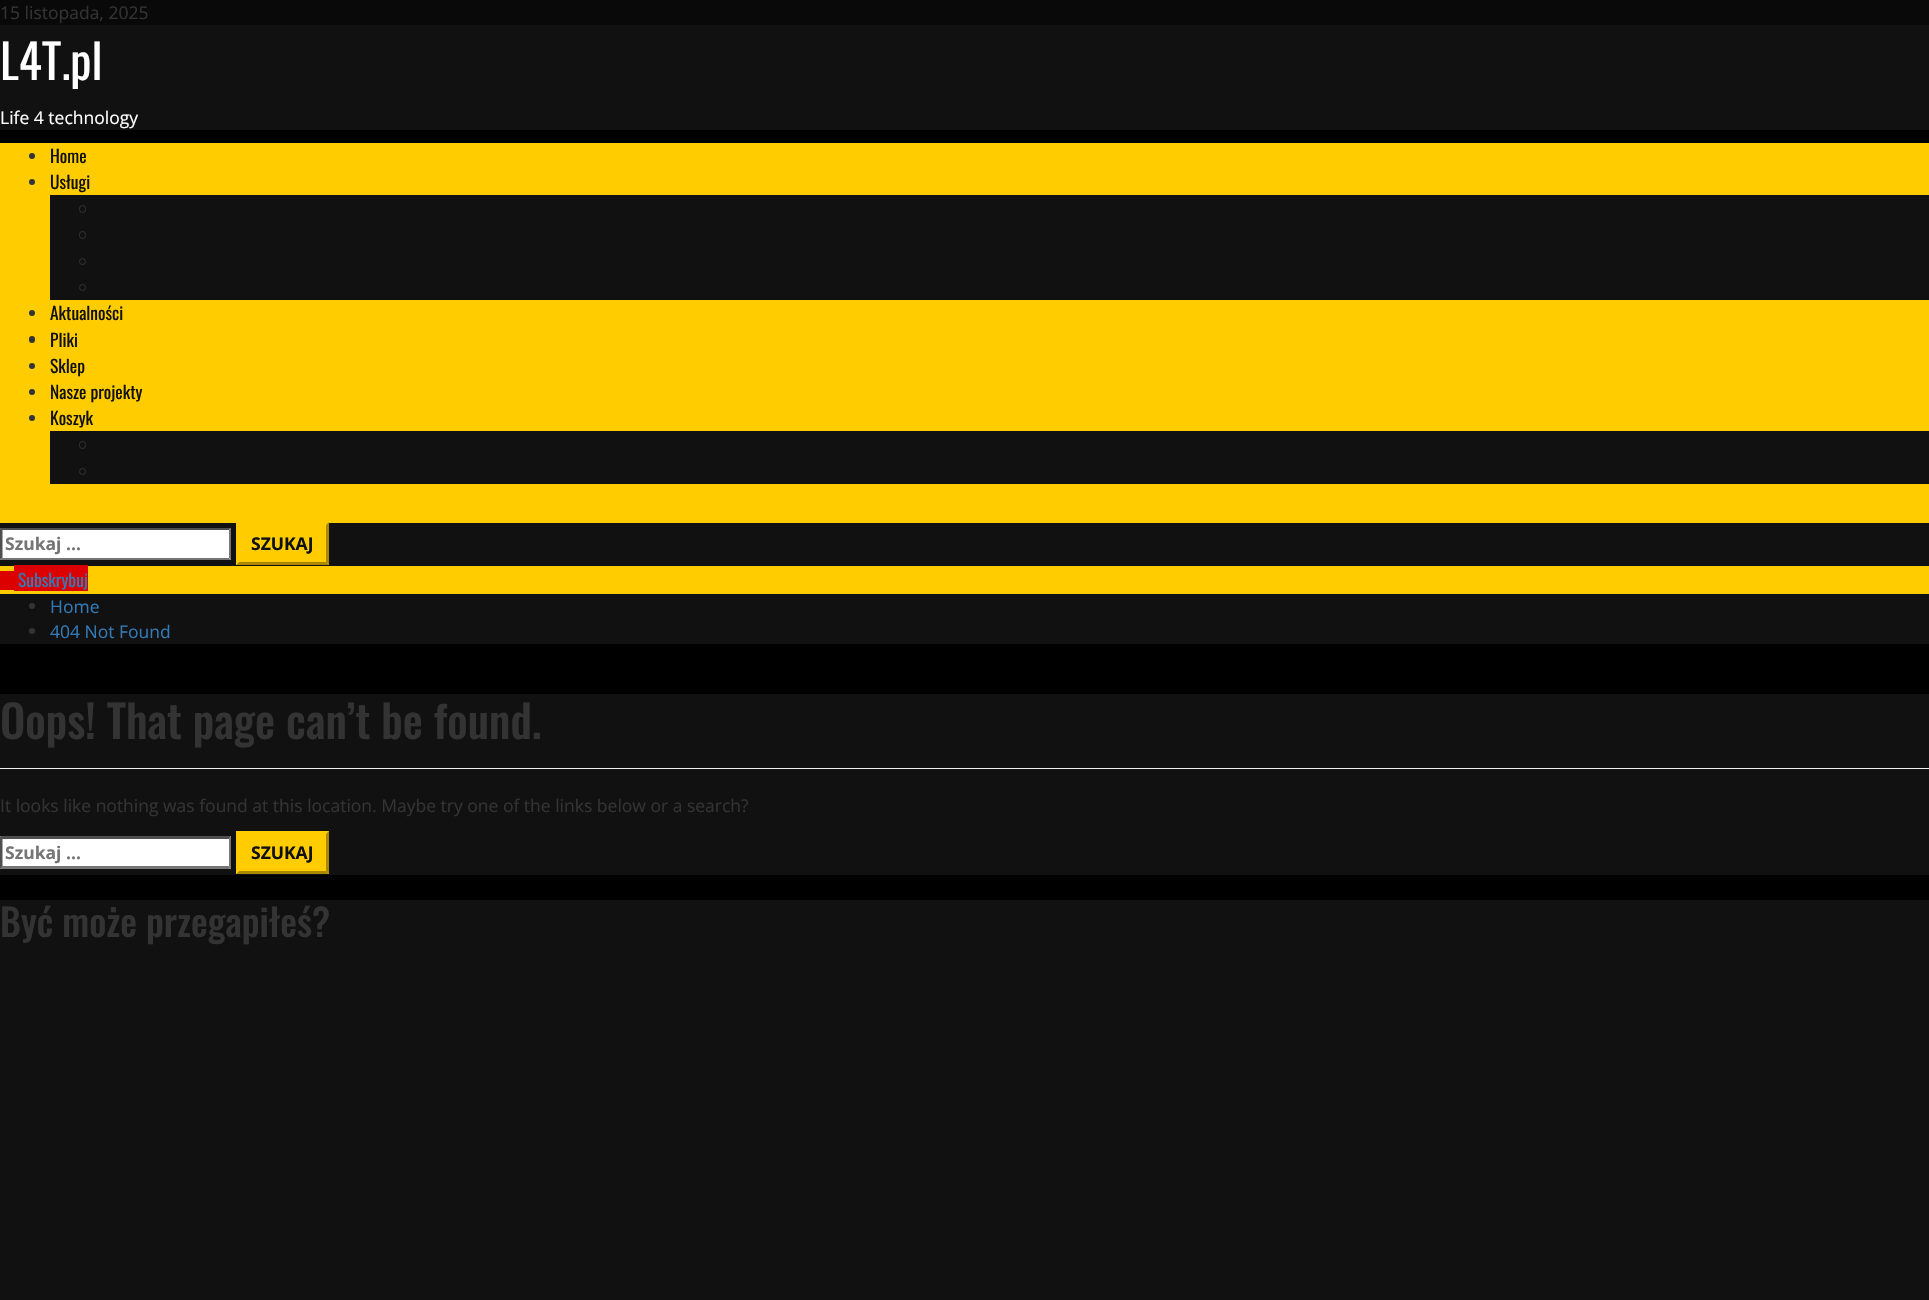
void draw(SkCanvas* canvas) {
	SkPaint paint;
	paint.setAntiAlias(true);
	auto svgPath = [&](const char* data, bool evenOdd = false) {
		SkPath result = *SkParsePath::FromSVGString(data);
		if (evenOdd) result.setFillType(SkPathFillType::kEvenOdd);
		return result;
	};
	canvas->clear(0xff000000);
	paint.setColor(0xff090909);
	canvas->drawRect(SkRect::MakeXYWH(0, 0, 1929, 25), paint);
	SkFont f1(fontMgr->matchFamilyStyle("Open Sans", SkFontStyle::Normal()), 17.5);
	f1.setSubpixel(true);
	paint.setColor(0xff333333);
	canvas->drawString("15 listopada, 2025", 0, 19, f1, paint);
	paint.setColor(0xff111111);
	canvas->drawRect(SkRect::MakeXYWH(0, 25, 1929, 105), paint);
	SkFont f2(fontMgr->matchFamilyStyle("Oswald", SkFontStyle::Normal()), 47.5);
	f2.setSubpixel(true);
	paint.setColor(0xffffffff);
	canvas->drawString("L4T.pl", 0, 80, f2, paint);
	canvas->drawString("Life 4 technology", 0, 124, f1, paint);
	paint.setColor(0xffffcc00);
	canvas->drawRect(SkRect::MakeXYWH(0, 143, 1929, 451), paint);
	paint.setColor(0xff333333);
	canvas->drawCircle(32, 156, 3, paint);
	SkFont f3(fontMgr->matchFamilyStyle("Oswald", SkFontStyle::Normal()), 17.5);
	f3.setSubpixel(true);
	paint.setColor(0xff111111);
	canvas->drawString("Home", 50, 163, f3, paint);
	paint.setColor(0xff333333);
	canvas->drawCircle(32, 182, 3, paint);
	paint.setColor(0xff111111);
	canvas->drawString("Usługi", 50, 189, f3, paint);
	canvas->drawRect(SkRect::MakeXYWH(50, 195, 1879, 105), paint);
	paint.setStroke(true);
	paint.setStrokeWidth(1);
	paint.setColor(0xff333333);
	canvas->drawRoundRect(SkRect::MakeXYWH(79.5, 205.5, 6, 7), 3, 3, paint);
	canvas->drawRoundRect(SkRect::MakeXYWH(79.5, 231.5, 6, 7), 3, 3, paint);
	canvas->drawCircle(82.5, 261.5, 3, paint);
	canvas->drawCircle(82.5, 287.5, 3, paint);
	paint.setStroke(false);
	canvas->drawCircle(32, 313, 3, paint);
	paint.setColor(0xff111111);
	canvas->drawString("Aktualności", 50, 320, f3, paint);
	paint.setColor(0xff333333);
	canvas->drawRoundRect(SkRect::MakeXYWH(29, 336, 6, 7), 3, 3, paint);
	paint.setColor(0xff111111);
	canvas->drawString("Pliki", 50, 347, f3, paint);
	paint.setColor(0xff333333);
	canvas->drawCircle(32, 366, 3, paint);
	paint.setColor(0xff111111);
	canvas->drawString("Sklep", 50, 373, f3, paint);
	paint.setColor(0xff333333);
	canvas->drawCircle(32, 392, 3, paint);
	paint.setColor(0xff111111);
	canvas->drawString("Nasze projekty", 50, 399, f3, paint);
	paint.setColor(0xff333333);
	canvas->drawCircle(32, 418, 3, paint);
	paint.setColor(0xff111111);
	canvas->drawString("Koszyk", 50, 425, f3, paint);
	canvas->drawRect(SkRect::MakeXYWH(50, 431, 1879, 53), paint);
	paint.setStroke(true);
	paint.setColor(0xff333333);
	canvas->drawRoundRect(SkRect::MakeXYWH(79.5, 441.5, 6, 7), 3, 3, paint);
	canvas->drawCircle(82.5, 471.5, 3, paint);
	paint.setStroke(false);
	paint.setColor(0xff111111);
	canvas->drawRect(SkRect::MakeXYWH(0, 523, 1929, 43), paint);
	paint.setColor(0xffffffff);
	canvas->drawRect(SkRect::MakeXYWH(0, 528, 231, 32), paint);
	paint.setColor(0xff4f4f4f);
	canvas->drawPath(svgPath("M0 528H231L229 530H2Z"), paint);
	paint.setColor(0xff767676);
	canvas->drawPath(svgPath("M231 527.5V560L229 557.5V530Z"), paint);
	canvas->drawPath(svgPath("M231 560H0L2 558H229Z"), paint);
	paint.setColor(0xff4f4f4f);
	canvas->drawPath(svgPath("M0 560V527.5L2.5 530V557.5Z"), paint);
	SkFont f4(fontMgr->matchFamilyStyle("Open Sans", SkFontStyle::Bold()), 17.5);
	f4.setSubpixel(true);
	paint.setColor(0xff757575);
	canvas->drawString("Szukaj …", 5, 550, f4, paint);
	paint.setColor(0xffffcc00);
	canvas->drawRect(SkRect::MakeXYWH(236, 523, 93, 42), paint);
	paint.setColor(0xffaa8800);
	canvas->drawPath(svgPath("M329 522V565L326 562V525Z"), paint);
	canvas->drawPath(svgPath("M329 565H236L239 562H326Z"), paint);
	paint.setColor(0xffffcc00);
	canvas->drawPath(svgPath("M236 565V522L239 525V562Z"), paint);
	paint.setColor(0xff111111);
	canvas->drawString("SZUKAJ", 251, 550, f4, paint);
	paint.setColor(0xffdd0000);
	canvas->drawRect(SkRect::MakeXYWH(14, 565, 74, 26), paint);
	paint.setColor(0xff337ab7);
	canvas->drawString("Subskrybuj", 18, 587, f3, paint);
	paint.setColor(0xffdd0000);
	canvas->drawRect(SkRect::MakeXYWH(0, 571, 14, 19), paint);
	paint.setColor(0xff111111);
	canvas->drawRect(SkRect::MakeXYWH(0, 594, 1929, 50), paint);
	paint.setColor(0xff333333);
	canvas->drawCircle(32, 606, 3, paint);
	paint.setColor(0xff337ab7);
	canvas->drawString("Home", 50, 613, f1, paint);
	paint.setColor(0xff333333);
	canvas->drawCircle(32, 631, 3, paint);
	paint.setColor(0xff337ab7);
	canvas->drawString("404 Not Found", 50, 638, f1, paint);
	paint.setColor(0xff111111);
	canvas->drawRect(SkRect::MakeXYWH(0, 694, 1929, 181), paint);
	paint.setColor(0xffeeeeee);
	canvas->drawRect(SkRect::MakeXYWH(0, 768, 1929, 1), paint);
	SkFont f5(fontMgr->matchFamilyStyle("Oswald", SkFontStyle(500, SkFontStyle::kNormal_Width, SkFontStyle::kUpright_Slant)), 45);
	f5.setSubpixel(true);
	paint.setColor(0xff333333);
	canvas->drawString("Oops! That page can’t be found.", 0, 739, f5, paint);
	canvas->drawString("It looks like nothing was found at this location. Maybe try one of the links below or a search?", 0, 812, f1, paint);
	paint.setColor(0xffffffff);
	canvas->drawRect(SkRect::MakeXYWH(0, 836, 231, 33), paint);
	paint.setColor(0xff4f4f4f);
	canvas->drawPath(svgPath("M0 836H231L229 839H2Z"), paint);
	paint.setColor(0xff767676);
	canvas->drawPath(svgPath("M231 836V869L229 866V839Z"), paint);
	canvas->drawPath(svgPath("M231 869H0L2 866H229Z"), paint);
	paint.setColor(0xff4f4f4f);
	canvas->drawPath(svgPath("M0 869V836L2.5 839V866Z"), paint);
	paint.setColor(0xff757575);
	canvas->drawString("Szukaj …", 5, 859, f4, paint);
	paint.setColor(0xffffcc00);
	canvas->drawRect(SkRect::MakeXYWH(236, 831, 93, 43), paint);
	paint.setColor(0xffaa8800);
	canvas->drawPath(svgPath("M329 831V874L326 871V834Z"), paint);
	canvas->drawPath(svgPath("M329 874H236L239 871H326Z"), paint);
	paint.setColor(0xffffcc00);
	canvas->drawPath(svgPath("M236 874V831L239 834V871Z"), paint);
	paint.setColor(0xff111111);
	canvas->drawString("SZUKAJ", 251, 859, f4, paint);
	canvas->drawRect(SkRect::MakeXYWH(0, 900, 1929, 400), paint);
	SkFont f6(fontMgr->matchFamilyStyle("Oswald", SkFontStyle(500, SkFontStyle::kNormal_Width, SkFontStyle::kUpright_Slant)), 37.5);
	f6.setSubpixel(true);
	paint.setColor(0xff333333);
	canvas->drawString("Być może przegapiłeś?", 0, 937, f6, paint);
}
